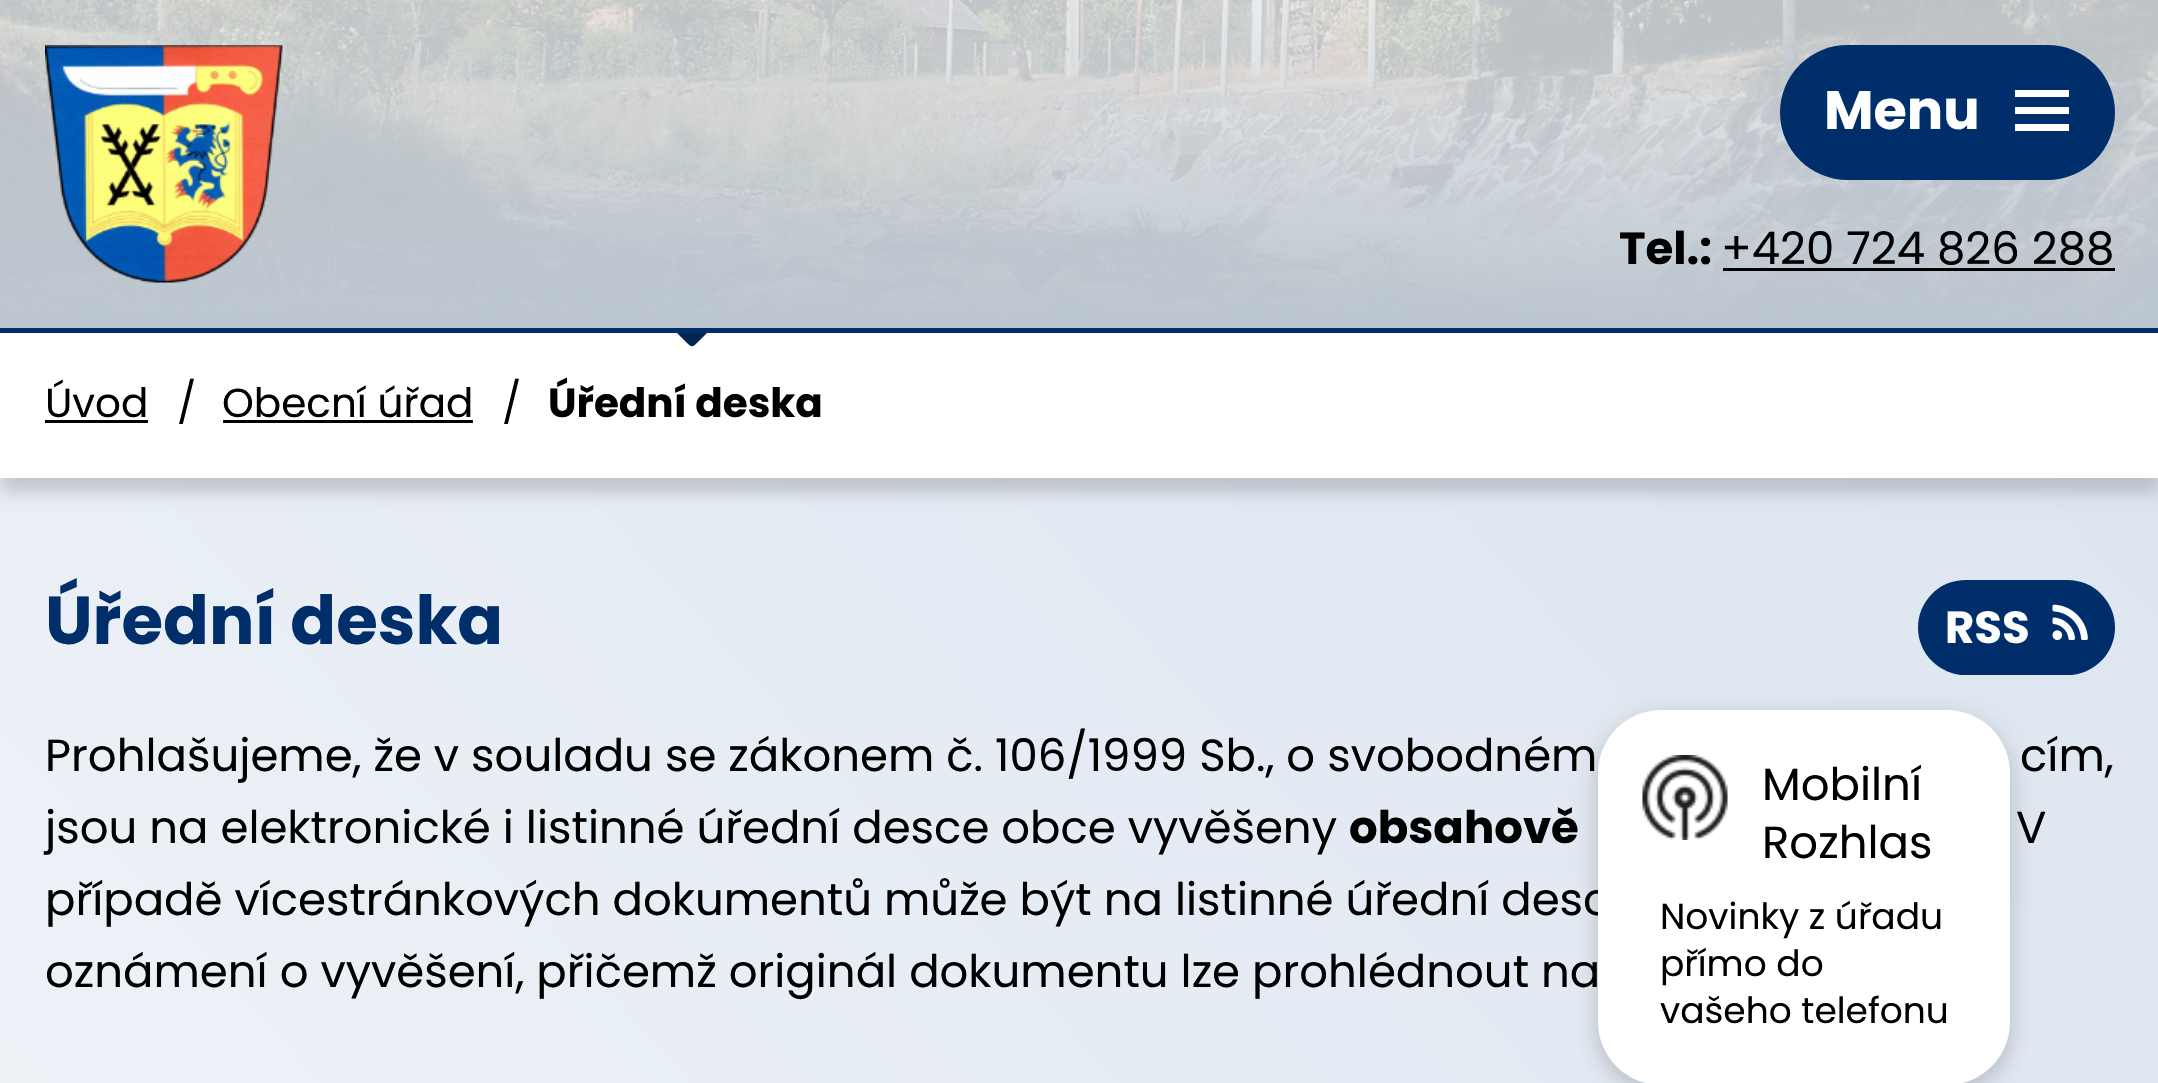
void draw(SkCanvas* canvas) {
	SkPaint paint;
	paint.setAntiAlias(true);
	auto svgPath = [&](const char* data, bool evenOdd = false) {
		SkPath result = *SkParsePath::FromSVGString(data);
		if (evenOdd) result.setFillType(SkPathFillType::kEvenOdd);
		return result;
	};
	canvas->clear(0xffffffff);
	{
		const SkColor colors[] = {0xffffffff, 0xffdae3ef};
		const float stops[] = {0, 1};
		const SkPoint ends[] = {{-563, 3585}, {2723, 625}};
		paint.setShader(SkGradientShader::MakeLinear(ends, colors, stops, 2, SkTileMode::kClamp));
		paint.setAlpha(255);
	}
	canvas->drawRect(SkRect::MakeXYWH(0, 478, 2158, 605), paint);
	paint.setShader(nullptr);
	paint.setColor(0x29000000);
	paint.setMaskFilter(SkMaskFilter::MakeBlur(kNormal_SkBlurStyle, 7.5));
	canvas->drawRect(SkRect::MakeXYWH(0, 348, 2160, 145), paint);
	paint.setMaskFilter(nullptr);
	canvas->drawImageRect(SkImages::DeferredFromEncodedData(SkData::MakeFromFileName("img1.png")), SkRect::MakeXYWH(0, 0, 2158, 328), SkSamplingOptions());
	paint.setColor(0xffffffff);
	canvas->drawRect(SkRect::MakeXYWH(0, 337, 2158, 141), paint);
	paint.setColor(0xff02264d);
	canvas->drawPath(svgPath("M721 314C724 318 718 322 716 324L699 341C692 348 692 348 685 341L664 320C661 317 663 314 666 313H719Z"), paint);
	paint.setColor(0x47002e6a);
	canvas->drawRect(SkRect::MakeXYWH(0, 0, 2158, 328), paint);
	{
		const SkColor colors[] = {0x0000254c, 0xff00254c};
		const float stops[] = {0, 1};
		const SkPoint ends[] = {{1080, 0}, {1080, 333}};
		paint.setShader(SkGradientShader::MakeLinear(ends, colors, stops, 2, SkTileMode::kClamp));
		paint.setAlpha(255);
	}
	canvas->drawRect(SkRect::MakeXYWH(0, 7, 2158, 321), paint);
	paint.setShader(nullptr);
	paint.setColor(0xbffafbfb);
	canvas->drawRect(SkRect::MakeXYWH(0, 0, 2158, 328), paint);
	paint.setColor(0xff002e6a);
	canvas->drawRoundRect(SkRect::MakeXYWH(1780, 45, 335, 135), 67.5, 67.5, paint);
	SkFont f1(fontMgr->matchFamilyStyle("Poppins", SkFontStyle::Bold()), 54);
	f1.setSubpixel(true);
	paint.setColor(0xffffffff);
	canvas->drawString("Menu", 1824, 129, f1, paint);
	canvas->drawPath(svgPath("M2015 131V124H2069V131ZM2015 90H2069V97H2015ZM2015 114V107H2069V114Z"), paint);
	paint.setColor(0xff002e6a);
	canvas->drawRect(SkRect::MakeXYWH(0, 328, 2158, 5), paint);
	canvas->drawImageRect(SkImages::DeferredFromEncodedData(SkData::MakeFromFileName("img2.png")), SkRect::MakeXYWH(45, 45, 238, 238), SkSamplingOptions());
	SkFont f2(fontMgr->matchFamilyStyle("Poppins", SkFontStyle::Bold()), 45);
	f2.setSubpixel(true);
	paint.setColor(0xff000000);
	canvas->drawString("Tel.:", 1619, 264, f2, paint);
	SkFont f3(fontMgr->matchFamilyStyle("Poppins", SkFontStyle::Normal()), 45);
	f3.setSubpixel(true);
	canvas->drawString("+420 724 826 288", 1721, 264, f3, paint);
	canvas->drawRect(SkRect::MakeXYWH(1723, 268, 392, 3), paint);
	SkFont f4(fontMgr->matchFamilyStyle("Poppins", SkFontStyle::Normal()), 40.5);
	f4.setSubpixel(true);
	canvas->drawString("Úvod", 45, 417, f4, paint);
	canvas->drawRect(SkRect::MakeXYWH(45, 420, 103, 3), paint);
	canvas->drawString("/", 177, 417, f4, paint);
	canvas->drawString("Obecní úřad", 222, 417, f4, paint);
	canvas->drawRect(SkRect::MakeXYWH(223, 420, 250, 3), paint);
	canvas->drawString("/", 502, 417, f4, paint);
	SkFont f5(fontMgr->matchFamilyStyle("Poppins", SkFontStyle::Bold()), 40.5);
	f5.setSubpixel(true);
	canvas->drawString("Úřední deska", 548, 417, f5, paint);
	SkFont f6(fontMgr->matchFamilyStyle("Poppins", SkFontStyle::Bold()), 67.5);
	f6.setSubpixel(true);
	paint.setColor(0xff002e6a);
	canvas->drawString("Úřední deska", 45, 644, f6, paint);
	canvas->drawRoundRect(SkRect::MakeXYWH(1918, 580, 197, 95), 47.5, 47.5, paint);
	paint.setColor(0xffffffff);
	canvas->drawString("RSS", 1945, 643, f2, paint);
	canvas->drawImageRect(SkImages::DeferredFromEncodedData(SkData::MakeFromFileName("img3.png")), SkRect::MakeXYWH(2052, 604, 36, 36), SkSamplingOptions());
	paint.setColor(0xff000000);
	canvas->drawString("Prohlašujeme, že v souladu se zákonem č. 106/1999 Sb., o svobodném", 45, 771, f3, paint);
	canvas->drawString("cím,", 2020, 771, f3, paint);
	canvas->drawString("jsou na elektronické i listinné úřední desce obce vyvěšeny", 45, 843, f3, paint);
	canvas->drawString("obsahově", 1349, 843, f2, paint);
	canvas->drawString("V", 2016, 843, f3, paint);
	canvas->drawString("případě vícestránkových dokumentů může být na listinné úřední desc", 45, 915, f3, paint);
	canvas->drawString("oznámení o vyvěšení, přičemž originál dokumentu lze prohlédnout na", 45, 987, f3, paint);
	paint.setColor(0x33000000);
	paint.setMaskFilter(SkMaskFilter::MakeBlur(kNormal_SkBlurStyle, 12.5));
	canvas->drawRoundRect(SkRect::MakeXYWH(1598, 718, 412, 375), 63, 63, paint);
	paint.setMaskFilter(nullptr);
	paint.setColor(0xffffffff);
	canvas->drawRoundRect(SkRect::MakeXYWH(1598, 710, 412, 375), 63, 63, paint);
	canvas->drawImageRect(SkImages::DeferredFromEncodedData(SkData::MakeFromFileName("img4.png")), SkRect::MakeXYWH(1642, 755, 86, 85), SkSamplingOptions());
	paint.setColor(0xff000000);
	canvas->drawString("Mobilní", 1762, 800, f3, paint);
	canvas->drawString("Rozhlas", 1762, 858, f3, paint);
	SkFont f7(fontMgr->matchFamilyStyle("Poppins", SkFontStyle::Normal()), 36);
	f7.setSubpixel(true);
	canvas->drawString("Novinky z úřadu", 1660, 929, f7, paint);
	canvas->drawString("přímo do", 1660, 976, f7, paint);
	canvas->drawString("vašeho telefonu", 1660, 1023, f7, paint);
}
